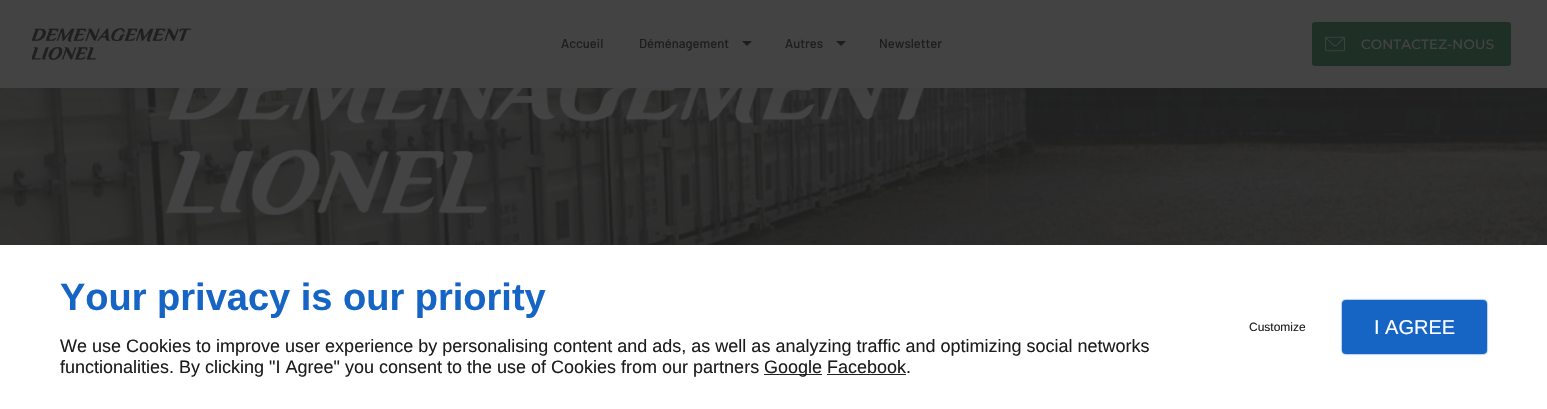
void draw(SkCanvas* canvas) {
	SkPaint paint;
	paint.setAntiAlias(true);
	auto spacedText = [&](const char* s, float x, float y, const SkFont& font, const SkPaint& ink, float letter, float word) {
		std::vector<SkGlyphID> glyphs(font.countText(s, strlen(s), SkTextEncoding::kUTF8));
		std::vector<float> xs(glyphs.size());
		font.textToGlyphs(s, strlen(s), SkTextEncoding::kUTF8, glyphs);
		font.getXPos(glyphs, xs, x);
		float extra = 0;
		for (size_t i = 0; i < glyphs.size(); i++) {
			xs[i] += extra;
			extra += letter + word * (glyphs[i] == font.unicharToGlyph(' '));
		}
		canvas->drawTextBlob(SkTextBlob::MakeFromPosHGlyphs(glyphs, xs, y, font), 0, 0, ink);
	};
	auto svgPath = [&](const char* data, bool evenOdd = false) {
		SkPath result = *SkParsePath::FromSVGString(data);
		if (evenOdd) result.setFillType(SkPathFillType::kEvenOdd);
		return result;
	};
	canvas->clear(0xffffffff);
	canvas->drawImageRect(SkImages::DeferredFromEncodedData(SkData::MakeFromFileName("img3.png")), SkRect::MakeXYWH(0, 88, 1547, 157), SkSamplingOptions());
	canvas->drawImageRect(SkImages::DeferredFromEncodedData(SkData::MakeFromFileName("img4.png")), SkRect::MakeXYWH(166, 88, 759, 127), SkSamplingOptions());
	paint.setColor(0x1a434343);
	canvas->drawRect(SkRect::MakeXYWH(986, 88, 1, 115), paint);
	canvas->drawRect(SkRect::MakeXYWH(561, 123, 1, 122), paint);
	paint.setColor(0x1a1d1d1d);
	paint.setMaskFilter(SkMaskFilter::MakeBlur(kNormal_SkBlurStyle, 12.5));
	canvas->drawRect(SkRect::MakeXYWH(0, 5, 1547, 88), paint);
	paint.setMaskFilter(nullptr);
	paint.setColor(0xff434343);
	canvas->drawRect(SkRect::MakeXYWH(0, 0, 1547, 88), paint);
	canvas->drawImageRect(SkImages::DeferredFromEncodedData(SkData::MakeFromFileName("img1.png")), SkRect::MakeXYWH(32, 28, 159, 32), SkSamplingOptions());
	SkFont f1(fontMgr->matchFamilyStyle("Barlow", SkFontStyle(500, SkFontStyle::kNormal_Width, SkFontStyle::kUpright_Slant)), 13);
	f1.setSubpixel(true);
	paint.setColor(0xff1d1d1d);
	canvas->drawString("Accueil", 561, 48, f1, paint);
	canvas->drawString("Déménagement", 639, 48, f1, paint);
	canvas->drawPath(svgPath("M742 41H752L747 46Z"), paint);
	canvas->drawString("Autres", 785, 48, f1, paint);
	canvas->drawPath(svgPath("M836 41H846L841 46Z"), paint);
	canvas->drawString("Newsletter", 879, 48, f1, paint);
	paint.setColor(0xff1e3025);
	canvas->drawRoundRect(SkRect::MakeXYWH(1312, 22, 199, 44), 3, 3, paint);
	canvas->drawImageRect(SkImages::DeferredFromEncodedData(SkData::MakeFromFileName("img2.png")), SkRect::MakeXYWH(1325, 36, 20, 16), SkSamplingOptions());
	SkFont f2(fontMgr->matchFamilyStyle("Montserrat", SkFontStyle(500, SkFontStyle::kNormal_Width, SkFontStyle::kUpright_Slant)), 13.5);
	f2.setSubpixel(true);
	paint.setColor(0xff434343);
	spacedText("CONTACTEZ-NOUS", 1361, 49, f2, paint, 0.1, 0);
	SkFont f3(fontMgr->matchFamilyStyle("Liberation Sans", SkFontStyle::Bold()), 38);
	f3.setSubpixel(true);
	paint.setColor(0xff1665c4);
	canvas->drawString("Your privacy is our priority", 60, 310, f3, paint);
	SkFont f4(fontMgr->matchFamilyStyle("Liberation Sans", SkFontStyle::Normal()), 18);
	f4.setSubpixel(true);
	paint.setColor(0xff1d1d1d);
	canvas->drawString("We use Cookies to improve user experience by personalising content and ads, as well as analyzing traffic and optimizing social networks", 60, 352, f4, paint);
	canvas->drawString("functionalities. By clicking \"I Agree\" you consent to the use of Cookies from our partners", 60, 373, f4, paint);
	paint.setColor(0xff222222);
	canvas->drawRect(SkRect::MakeXYWH(764, 374, 58, 1), paint);
	paint.setColor(0xff1d1d1d);
	canvas->drawString("Google Facebook.", 764, 373, f4, paint);
	paint.setColor(0xff222222);
	canvas->drawRect(SkRect::MakeXYWH(827, 374, 79, 1), paint);
	SkFont f5(fontMgr->matchFamilyStyle("Liberation Sans", SkFontStyle::Normal()), 12);
	f5.setSubpixel(true);
	paint.setColor(0xff1d1d1d);
	canvas->drawString("Customize", 1249, 331, f5, paint);
	paint.setColor(0x4d1665c4);
	paint.setMaskFilter(SkMaskFilter::MakeBlur(kNormal_SkBlurStyle, 0.5));
	canvas->drawRoundRect(SkRect::MakeXYWH(1341, 299, 147, 56), 5, 5, paint);
	paint.setMaskFilter(nullptr);
	paint.setColor(0xff1665c4);
	canvas->drawRoundRect(SkRect::MakeXYWH(1343, 301, 143, 52), 3, 3, paint);
	paint.setStroke(true);
	paint.setStrokeWidth(2);
	canvas->drawRoundRect(SkRect::MakeXYWH(1343, 301, 143, 52), 3, 3, paint);
	SkFont f6(fontMgr->matchFamilyStyle("Liberation Sans", SkFontStyle::Normal()), 20);
	f6.setSubpixel(true);
	paint.setStroke(false);
	paint.setColor(0xffffffff);
	canvas->drawString("I AGREE", 1374, 334, f6, paint);
}
